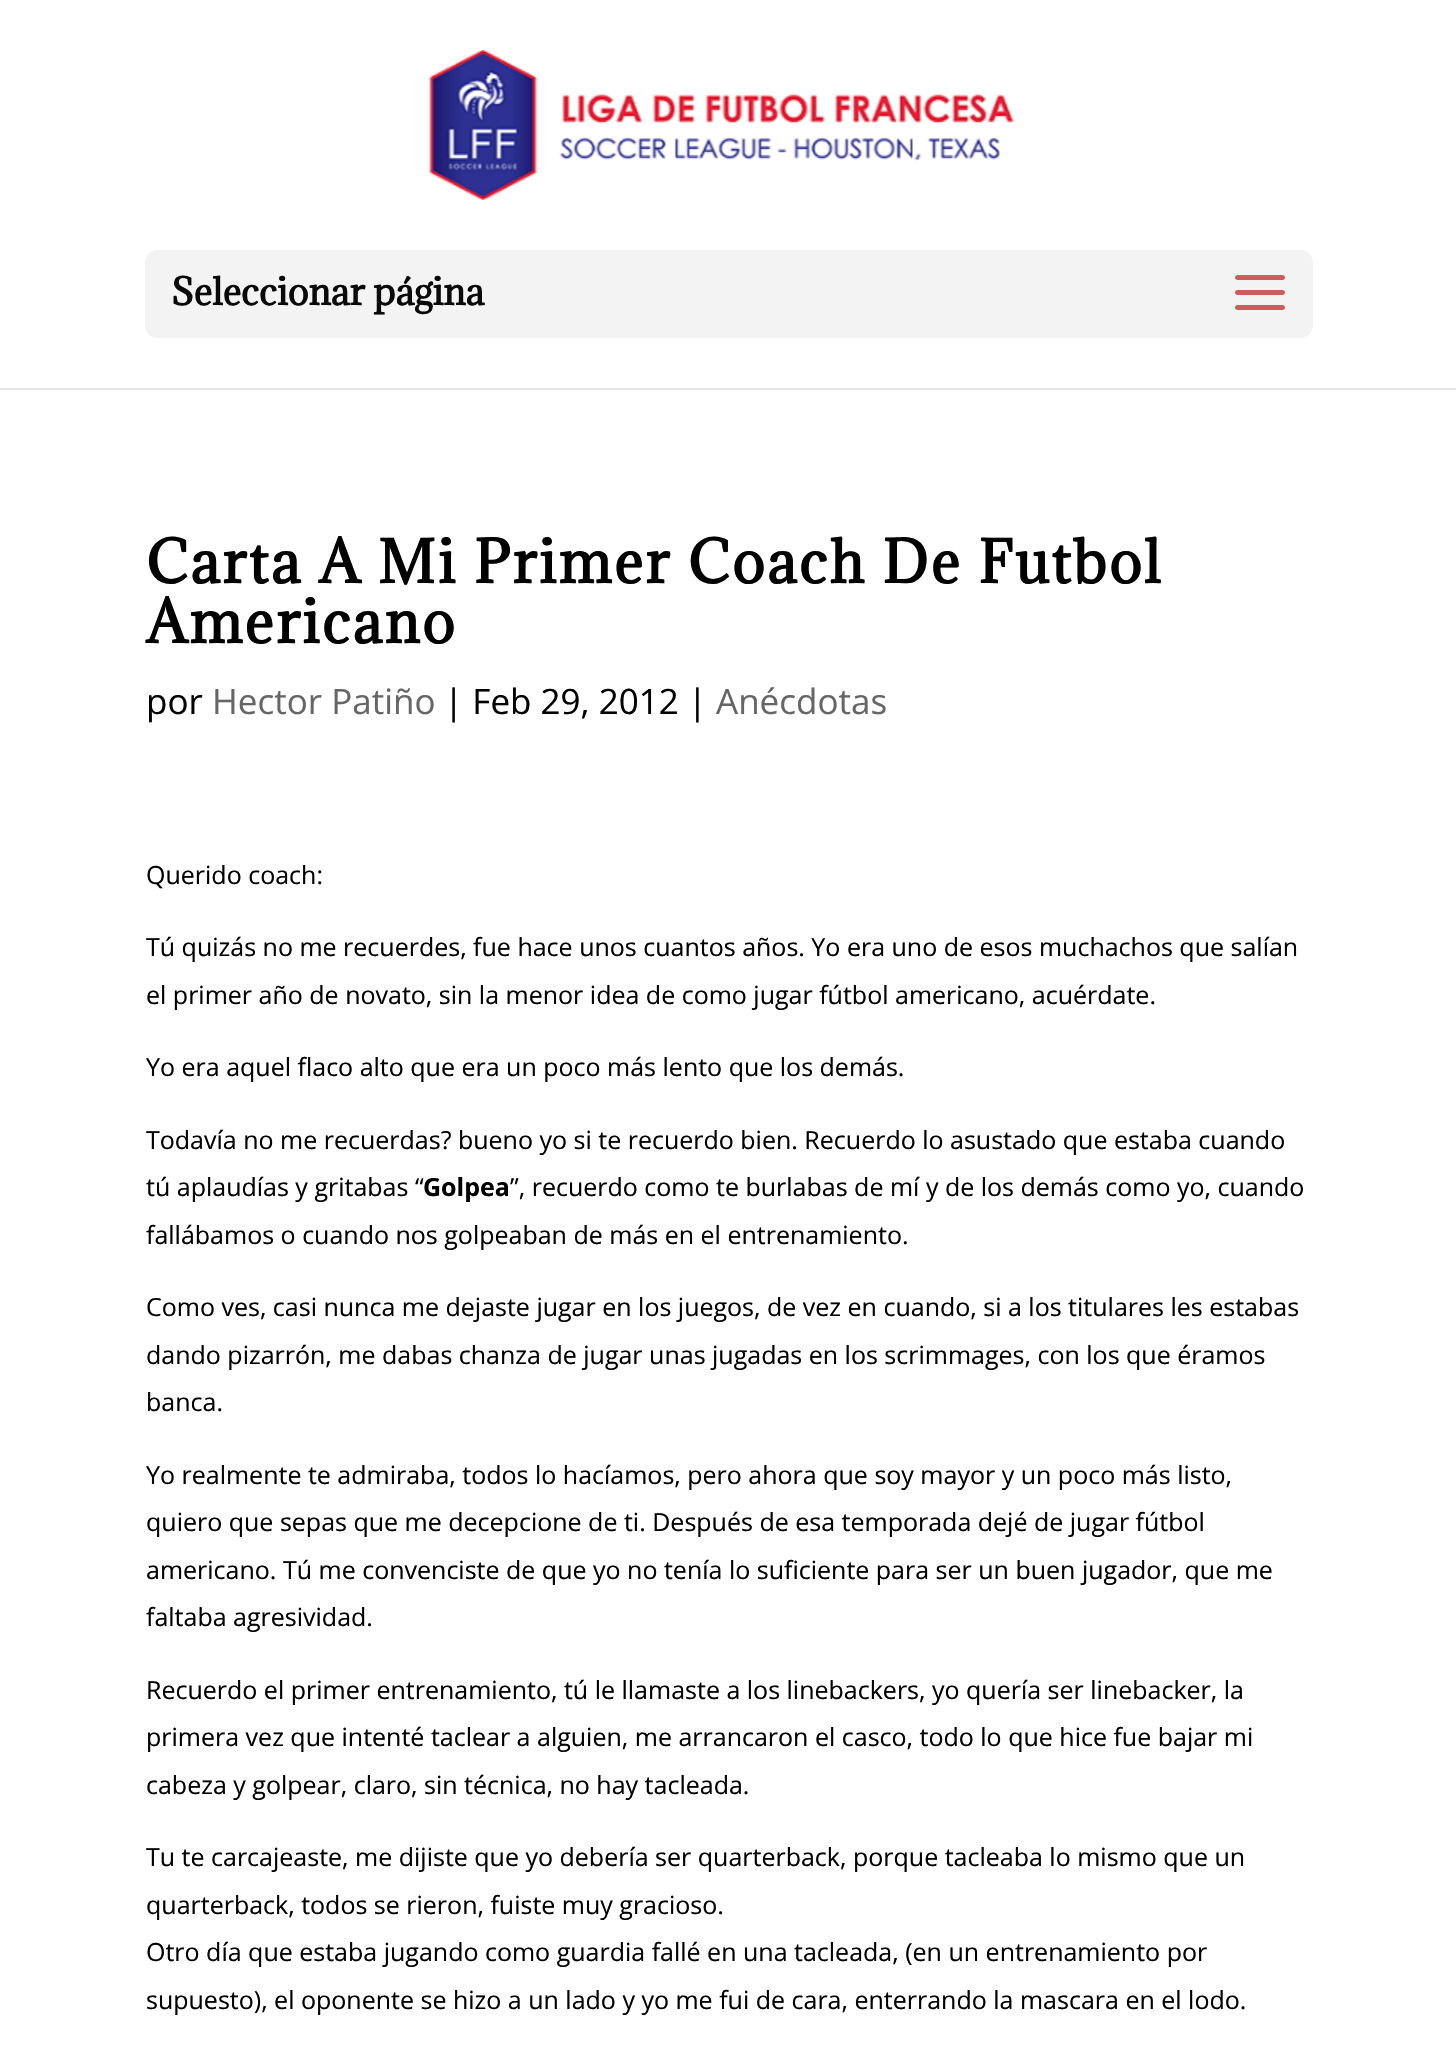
void draw(SkCanvas* canvas) {
	SkPaint paint;
	paint.setAntiAlias(true);
	auto spacedText = [&](const char* s, float x, float y, const SkFont& font, const SkPaint& ink, float letter, float word) {
		std::vector<SkGlyphID> glyphs(font.countText(s, strlen(s), SkTextEncoding::kUTF8));
		std::vector<float> xs(glyphs.size());
		font.textToGlyphs(s, strlen(s), SkTextEncoding::kUTF8, glyphs);
		font.getXPos(glyphs, xs, x);
		float extra = 0;
		for (size_t i = 0; i < glyphs.size(); i++) {
			xs[i] += extra;
			extra += letter + word * (glyphs[i] == font.unicharToGlyph(' '));
		}
		canvas->drawTextBlob(SkTextBlob::MakeFromPosHGlyphs(glyphs, xs, y, font), 0, 0, ink);
	};
	auto svgPath = [&](const char* data, bool evenOdd = false) {
		SkPath result = *SkParsePath::FromSVGString(data);
		if (evenOdd) result.setFillType(SkPathFillType::kEvenOdd);
		return result;
	};
	canvas->clear(0xffffffff);
	paint.setColor(0xffe6e6e6);
	canvas->drawPath(svgPath("M0 388V390H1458V3V388Z"), paint);
	canvas->drawImageRect(SkImages::DeferredFromEncodedData(SkData::MakeFromFileName("img1.png")), SkRect::MakeXYWH(429, 50, 586, 150), SkSamplingOptions());
	paint.setColor(0xfff3f3f3);
	canvas->drawRoundRect(SkRect::MakeXYWH(145, 250, 1168, 88), 13, 13, paint);
	SkFont f1(fontMgr->matchFamilyStyle("Adamina", SkFontStyle::Bold()), 35);
	f1.setSubpixel(true);
	paint.setColor(0xff0a0a0a);
	canvas->drawString("Seleccionar página", 171, 305, f1, paint);
	canvas->drawImageRect(SkImages::DeferredFromEncodedData(SkData::MakeFromFileName("img2.png")), SkRect::MakeXYWH(1235, 275, 50, 35), SkSamplingOptions());
	SkFont f2(fontMgr->matchFamilyStyle("Adamina", SkFontStyle::Bold()), 55);
	f2.setSubpixel(true);
	paint.setColor(0xff000000);
	spacedText("Carta A Mi Primer Coach De Futbol", 146, 583, f2, paint, 2.5, 0);
	spacedText("Americano", 146, 643, f2, paint, 2.5, 0);
	SkFont f3(fontMgr->matchFamilyStyle("Open Sans", SkFontStyle::Normal()), 35);
	f3.setSubpixel(true);
	canvas->drawString("por", 146, 714, f3, paint);
	paint.setColor(0xff666666);
	canvas->drawString("Hector Patiño", 212, 714, f3, paint);
	paint.setColor(0xff000000);
	canvas->drawString("| Feb 29, 2012 |", 444, 714, f3, paint);
	paint.setColor(0xff666666);
	canvas->drawString("Anécdotas", 716, 714, f3, paint);
	SkFont f4(fontMgr->matchFamilyStyle("Open Sans", SkFontStyle::Normal()), 25);
	f4.setSubpixel(true);
	paint.setColor(0xff000000);
	canvas->drawString("Querido coach:", 146, 884, f4, paint);
	canvas->drawString("Tú quizás no me recuerdes, fue hace unos cuantos años. Yo era uno de esos muchachos que salían", 146, 956, f4, paint);
	canvas->drawString("el primer año de novato, sin la menor idea de como jugar fútbol americano, acuérdate.", 146, 1004, f4, paint);
	canvas->drawString("Yo era aquel flaco alto que era un poco más lento que los demás.", 146, 1076, f4, paint);
	canvas->drawString("Todavía no me recuerdas? bueno yo si te recuerdo bien. Recuerdo lo asustado que estaba cuando", 146, 1149, f4, paint);
	canvas->drawString("tú aplaudías y gritabas “", 146, 1196, f4, paint);
	SkFont f5(fontMgr->matchFamilyStyle("Open Sans", SkFontStyle::Bold()), 25);
	f5.setSubpixel(true);
	canvas->drawString("Golpea", 423, 1196, f5, paint);
	canvas->drawString("”, recuerdo como te burlabas de mí y de los demás como yo, cuando", 510, 1196, f4, paint);
	canvas->drawString("fallábamos o cuando nos golpeaban de más en el entrenamiento.", 146, 1244, f4, paint);
	canvas->drawString("Como ves, casi nunca me dejaste jugar en los juegos, de vez en cuando, si a los titulares les estabas", 146, 1316, f4, paint);
	canvas->drawString("dando pizarrón, me dabas chanza de jugar unas jugadas en los scrimmages, con los que éramos", 146, 1364, f4, paint);
	canvas->drawString("banca.", 146, 1411, f4, paint);
	canvas->drawString("Yo realmente te admiraba, todos lo hacíamos, pero ahora que soy mayor y un poco más listo,", 146, 1484, f4, paint);
	canvas->drawString("quiero que sepas que me decepcione de ti. Después de esa temporada dejé de jugar fútbol", 146, 1531, f4, paint);
	canvas->drawString("americano. Tú me convenciste de que yo no tenía lo suficiente para ser un buen jugador, que me", 146, 1579, f4, paint);
	canvas->drawString("faltaba agresividad.", 146, 1626, f4, paint);
	canvas->drawString("Recuerdo el primer entrenamiento, tú le llamaste a los linebackers, yo quería ser linebacker, la", 146, 1699, f4, paint);
	canvas->drawString("primera vez que intenté taclear a alguien, me arrancaron el casco, todo lo que hice fue bajar mi", 146, 1746, f4, paint);
	canvas->drawString("cabeza y golpear, claro, sin técnica, no hay tacleada.", 146, 1794, f4, paint);
	canvas->drawString("Tu te carcajeaste, me dijiste que yo debería ser quarterback, porque tacleaba lo mismo que un", 146, 1866, f4, paint);
	canvas->drawString("quarterback, todos se rieron, fuiste muy gracioso.", 146, 1914, f4, paint);
	canvas->drawString("Otro día que estaba jugando como guardia fallé en una tacleada, (en un entrenamiento por", 146, 1961, f4, paint);
	canvas->drawString("supuesto), el oponente se hizo a un lado y yo me fui de cara, enterrando la mascara en el lodo.", 146, 2009, f4, paint);
}
